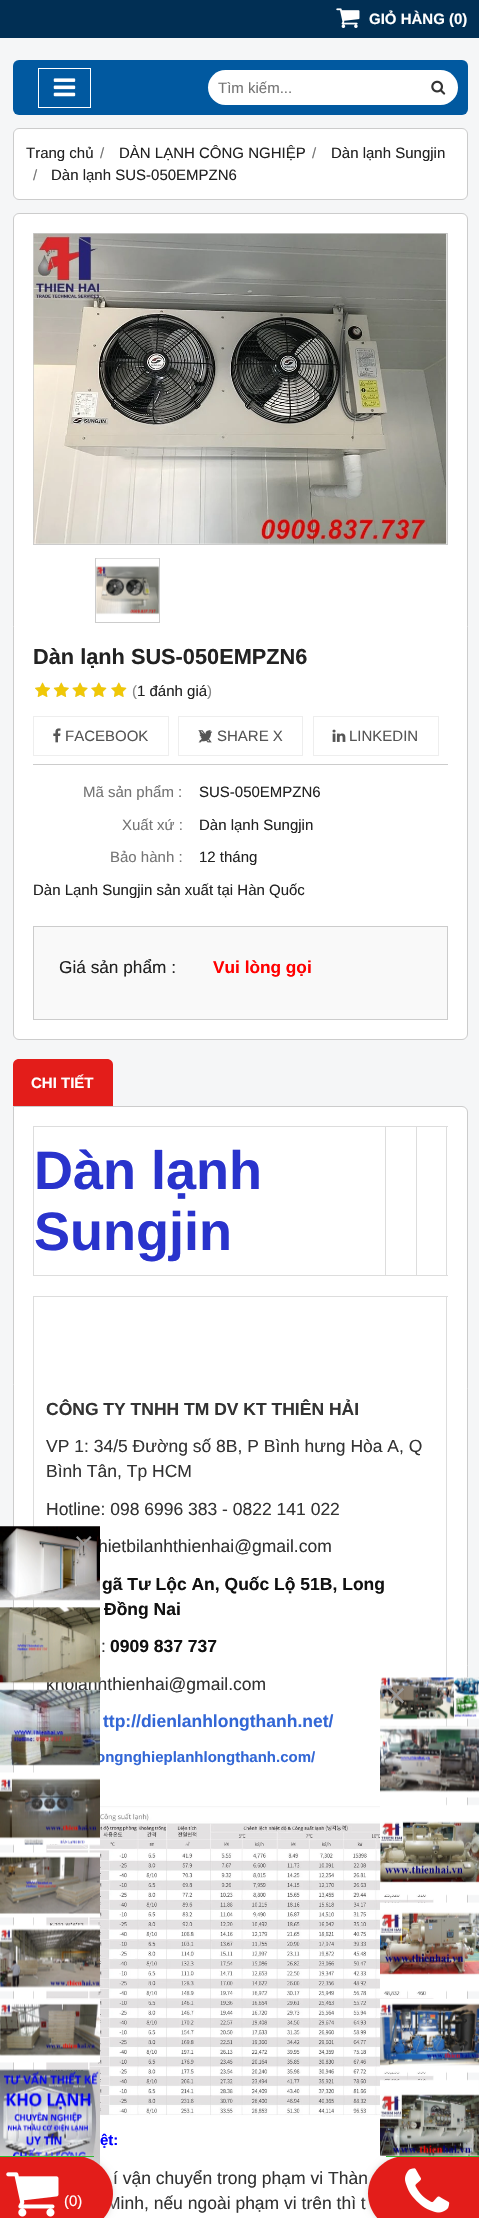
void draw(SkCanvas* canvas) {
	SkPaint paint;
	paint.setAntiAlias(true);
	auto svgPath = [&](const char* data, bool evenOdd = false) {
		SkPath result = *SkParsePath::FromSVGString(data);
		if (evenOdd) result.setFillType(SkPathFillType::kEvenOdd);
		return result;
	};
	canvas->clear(0xfff5f6f7);
	paint.setColor(0xff012f54);
	canvas->drawRect(SkRect::MakeXYWH(0, 0, 479, 38), paint);
	canvas->drawImageRect(SkImages::DeferredFromEncodedData(SkData::MakeFromFileName("img1.png")), SkRect::MakeXYWH(336, 8, 24, 20), SkSamplingOptions());
	SkFont f1(fontMgr->matchFamilyStyle("Liberation Sans", SkFontStyle::Bold()), 15);
	f1.setSubpixel(true);
	paint.setColor(0xffffffff);
	canvas->drawString("GIỎ HÀNG (0)", 369, 24, f1, paint);
	paint.setColor(0xff0159a0);
	canvas->drawRoundRect(SkRect::MakeXYWH(13, 60, 455, 55), 6, 6, paint);
	paint.setStroke(true);
	paint.setStrokeWidth(1);
	paint.setColor(0xffffffff);
	canvas->drawRect(SkRect::MakeXYWH(38.5, 68.5, 52, 39), paint);
	canvas->drawImageRect(SkImages::DeferredFromEncodedData(SkData::MakeFromFileName("img2.png")), SkRect::MakeXYWH(53, 78, 23, 19), SkSamplingOptions());
	paint.setStroke(false);
	canvas->drawRoundRect(SkRect::MakeXYWH(208, 70, 250, 35), 17.5, 17.5, paint);
	SkFont f2(fontMgr->matchFamilyStyle("Liberation Sans", SkFontStyle::Normal()), 15);
	f2.setSubpixel(true);
	paint.setColor(0xff757575);
	canvas->drawString("Tìm kiếm...", 218, 93, f2, paint);
	canvas->drawImageRect(SkImages::DeferredFromEncodedData(SkData::MakeFromFileName("img3.png")), SkRect::MakeXYWH(431, 80, 15, 15), SkSamplingOptions());
	paint.setColor(0xffffffff);
	canvas->drawRoundRect(SkRect::MakeXYWH(13.5, 128.5, 454, 71), 5.5, 5.5, paint);
	paint.setStroke(true);
	paint.setColor(0xffcccccc);
	canvas->drawRoundRect(SkRect::MakeXYWH(13.5, 128.5, 454, 71), 5.5, 5.5, paint);
	paint.setStroke(false);
	paint.setColor(0xff222222);
	canvas->drawString("Trang chủ", 26, 158, f2, paint);
	paint.setColor(0xff757575);
	canvas->drawString("/", 100, 158, f2, paint);
	paint.setColor(0xff222222);
	canvas->drawString("DÀN LẠNH CÔNG NGHIỆP", 119, 158, f2, paint);
	paint.setColor(0xff757575);
	canvas->drawString("/", 312, 158, f2, paint);
	paint.setColor(0xff222222);
	canvas->drawString("Dàn lạnh Sungjin", 331, 158, f2, paint);
	paint.setColor(0xff757575);
	canvas->drawString("/", 33, 180, f2, paint);
	paint.setColor(0xff222222);
	canvas->drawString("Dàn lạnh SUS-050EMPZN6", 51, 180, f2, paint);
	paint.setColor(0xffffffff);
	canvas->drawRoundRect(SkRect::MakeXYWH(13.5, 213.5, 454, 826), 5.5, 5.5, paint);
	paint.setStroke(true);
	paint.setColor(0xffcccccc);
	canvas->drawRoundRect(SkRect::MakeXYWH(13.5, 213.5, 454, 826), 5.5, 5.5, paint);
	canvas->drawRect(SkRect::MakeXYWH(33.5, 233.5, 414, 311), paint);
	canvas->drawImageRect(SkImages::DeferredFromEncodedData(SkData::MakeFromFileName("img4.png")), SkRect::MakeXYWH(33, 233, 414, 311), SkSamplingOptions());
	canvas->drawRect(SkRect::MakeXYWH(95.5, 558.5, 64, 64), paint);
	canvas->drawImageRect(SkImages::DeferredFromEncodedData(SkData::MakeFromFileName("img5.png")), SkRect::MakeXYWH(96, 558, 63, 57), SkSamplingOptions());
	SkFont f3(fontMgr->matchFamilyStyle("Liberation Sans", SkFontStyle::Bold()), 21.75);
	f3.setSubpixel(true);
	paint.setStroke(false);
	paint.setColor(0xff222222);
	canvas->drawString("Dàn lạnh SUS-050EMPZN6", 33, 664, f3, paint);
	canvas->drawImageRect(SkImages::DeferredFromEncodedData(SkData::MakeFromFileName("img6.png")), SkRect::MakeXYWH(35, 682, 15, 15), SkSamplingOptions());
	canvas->drawImageRect(SkImages::DeferredFromEncodedData(SkData::MakeFromFileName("img7.png")), SkRect::MakeXYWH(35, 682, 15, 15), SkSamplingOptions());
	canvas->drawImageRect(SkImages::DeferredFromEncodedData(SkData::MakeFromFileName("img11.png")), SkRect::MakeXYWH(54, 682, 15, 15), SkSamplingOptions());
	canvas->drawImageRect(SkImages::DeferredFromEncodedData(SkData::MakeFromFileName("img8.png")), SkRect::MakeXYWH(53, 682, 16, 15), SkSamplingOptions());
	canvas->drawImageRect(SkImages::DeferredFromEncodedData(SkData::MakeFromFileName("img12.png")), SkRect::MakeXYWH(72, 682, 16, 15), SkSamplingOptions());
	canvas->drawImageRect(SkImages::DeferredFromEncodedData(SkData::MakeFromFileName("img9.png")), SkRect::MakeXYWH(72, 682, 16, 15), SkSamplingOptions());
	canvas->drawImageRect(SkImages::DeferredFromEncodedData(SkData::MakeFromFileName("img13.png")), SkRect::MakeXYWH(91, 682, 16, 15), SkSamplingOptions());
	canvas->drawImageRect(SkImages::DeferredFromEncodedData(SkData::MakeFromFileName("img10.png")), SkRect::MakeXYWH(91, 682, 16, 15), SkSamplingOptions());
	canvas->drawImageRect(SkImages::DeferredFromEncodedData(SkData::MakeFromFileName("img13.png")), SkRect::MakeXYWH(111, 682, 16, 15), SkSamplingOptions());
	canvas->drawImageRect(SkImages::DeferredFromEncodedData(SkData::MakeFromFileName("img10.png")), SkRect::MakeXYWH(111, 682, 16, 15), SkSamplingOptions());
	paint.setColor(0xff888888);
	canvas->drawString("(", 132, 696, f2, paint);
	paint.setColor(0xff222222);
	canvas->drawString("1 đánh giá", 137, 696, f2, paint);
	paint.setColor(0xff888888);
	canvas->drawString(")", 207, 696, f2, paint);
	paint.setColor(0xffcccccc);
	canvas->drawRect(SkRect::MakeXYWH(33, 764, 415, 1), paint);
	paint.setStroke(true);
	paint.setColor(0xffeeeeee);
	canvas->drawRect(SkRect::MakeXYWH(33.5, 716.5, 135, 39), paint);
	canvas->drawImageRect(SkImages::DeferredFromEncodedData(SkData::MakeFromFileName("img14.png")), SkRect::MakeXYWH(53, 728, 8, 15), SkSamplingOptions());
	paint.setStroke(false);
	paint.setColor(0xff555555);
	canvas->drawString("FACEBOOK", 65, 741, f2, paint);
	paint.setStroke(true);
	paint.setColor(0xffeeeeee);
	canvas->drawRect(SkRect::MakeXYWH(178.5, 716.5, 124, 39), paint);
	canvas->drawImageRect(SkImages::DeferredFromEncodedData(SkData::MakeFromFileName("img15.png")), SkRect::MakeXYWH(198, 730, 14, 13), SkSamplingOptions());
	canvas->drawImageRect(SkImages::DeferredFromEncodedData(SkData::MakeFromFileName("img16.png")), SkRect::MakeXYWH(199, 730, 14, 12), SkSamplingOptions());
	paint.setStroke(false);
	paint.setColor(0xff555555);
	canvas->drawString("SHARE X", 217, 741, f2, paint);
	paint.setStroke(true);
	paint.setColor(0xffeeeeee);
	canvas->drawRect(SkRect::MakeXYWH(313.5, 716.5, 125, 39), paint);
	canvas->drawImageRect(SkImages::DeferredFromEncodedData(SkData::MakeFromFileName("img17.png")), SkRect::MakeXYWH(332, 729, 14, 13), SkSamplingOptions());
	paint.setStroke(false);
	paint.setColor(0xff555555);
	canvas->drawString("LINKEDIN", 349, 741, f2, paint);
	paint.setColor(0xff757575);
	canvas->drawString("Mã sản phẩm :", 83, 797, f2, paint);
	paint.setColor(0xff222222);
	canvas->drawString("SUS-050EMPZN6", 199, 797, f2, paint);
	paint.setColor(0xff757575);
	canvas->drawString("Xuất xứ :", 122, 830, f2, paint);
	paint.setColor(0xff222222);
	canvas->drawString("Dàn lạnh Sungjin", 199, 830, f2, paint);
	paint.setColor(0xff757575);
	canvas->drawString("Bảo hành :", 110, 862, f2, paint);
	paint.setColor(0xff222222);
	canvas->drawString("12 tháng", 199, 862, f2, paint);
	canvas->drawString("Dàn Lạnh Sungjin sản xuất tại Hàn Quốc", 33, 895, f2, paint);
	paint.setColor(0xfff9f9f9);
	canvas->drawRect(SkRect::MakeXYWH(33.5, 926.5, 414, 93), paint);
	paint.setStroke(true);
	paint.setColor(0xffcccccc);
	canvas->drawRect(SkRect::MakeXYWH(33.5, 926.5, 414, 93), paint);
	SkFont f4(fontMgr->matchFamilyStyle("Liberation Sans", SkFontStyle::Normal()), 17.25);
	f4.setSubpixel(true);
	paint.setStroke(false);
	paint.setColor(0xff222222);
	canvas->drawString("Giá sản phẩm :", 59, 973, f4, paint);
	SkFont f5(fontMgr->matchFamilyStyle("Liberation Sans", SkFontStyle::Bold()), 17.25);
	f5.setSubpixel(true);
	paint.setColor(0xffff0000);
	canvas->drawString("Vui lòng gọi", 213, 973, f5, paint);
	paint.setColor(0xffe31d1a);
	canvas->drawPath(svgPath("M19 1059H107C110.5 1059 113 1061.5 113 1065V1106H13V1065C13 1061.5 15.5 1059 19 1059Z"), paint);
	paint.setColor(0xffffffff);
	canvas->drawString("CHI TIẾT", 31, 1088, f1, paint);
	canvas->drawPath(svgPath("M13.5 1106.5H462C465 1106.5 467.5 1109 467.5 1112V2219C467.5 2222 465 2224.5 462 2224.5H19C16 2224.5 13.5 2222 13.5 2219Z"), paint);
	paint.setStroke(true);
	paint.setColor(0xffcccccc);
	canvas->drawPath(svgPath("M13.5 1106.5H462C465 1106.5 467.5 1109 467.5 1112V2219C467.5 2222 465 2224.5 462 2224.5H19C16 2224.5 13.5 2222 13.5 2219Z"), paint);
	paint.setStroke(false);
	paint.setColor(0xffdddddd);
	canvas->drawRect(SkRect::MakeXYWH(416, 1126, 32, 1), paint);
	canvas->drawRect(SkRect::MakeXYWH(446, 1126, 1, 150), paint);
	canvas->drawRect(SkRect::MakeXYWH(416, 1275, 32, 1), paint);
	canvas->drawRect(SkRect::MakeXYWH(416, 1126, 1, 150), paint);
	canvas->drawRect(SkRect::MakeXYWH(385, 1126, 33, 1), paint);
	canvas->drawRect(SkRect::MakeXYWH(385, 1275, 33, 1), paint);
	canvas->drawRect(SkRect::MakeXYWH(385, 1126, 1, 150), paint);
	canvas->drawRect(SkRect::MakeXYWH(33, 1126, 353, 1), paint);
	canvas->drawRect(SkRect::MakeXYWH(33, 1275, 353, 1), paint);
	canvas->drawRect(SkRect::MakeXYWH(33, 1126, 1, 150), paint);
	SkFont f6(fontMgr->matchFamilyStyle("Liberation Sans", SkFontStyle::Bold()), 54);
	f6.setSubpixel(true);
	paint.setColor(0xff2933cc);
	canvas->drawString("Dàn lạnh", 34, 1189, f6, paint);
	canvas->drawString("Sungjin", 34, 1250, f6, paint);
	paint.setColor(0xffdddddd);
	canvas->drawRect(SkRect::MakeXYWH(33, 1296, 415, 1), paint);
	canvas->drawRect(SkRect::MakeXYWH(446, 1296, 1, 785), paint);
	canvas->drawRect(SkRect::MakeXYWH(33, 1296, 1, 775), paint);
	SkFont f7(fontMgr->matchFamilyStyle("Liberation Sans", SkFontStyle::Bold()), 17.5);
	f7.setSubpixel(true);
	paint.setColor(0xff333333);
	canvas->drawString("CÔNG TY TNHH TM DV KT THIÊN HẢI", 46, 1415, f7, paint);
	SkFont f8(fontMgr->matchFamilyStyle("Liberation Sans", SkFontStyle::Normal()), 17.5);
	f8.setSubpixel(true);
	canvas->drawString("VP 1: 34/5 Đường số 8B, P Bình hưng Hòa A, Q", 46, 1452, f8, paint);
	canvas->drawString("Bình Tân, Tp HCM", 46, 1477, f8, paint);
	canvas->drawString("Hotline: 098 6996 383 - 0822 141 022", 46, 1515, f8, paint);
	canvas->drawString("hietbilanhthienhai@gmail.com", 98, 1552, f8, paint);
	paint.setColor(0xff111111);
	canvas->drawString("gã Tư Lộc An, Quốc Lộ 51B, Long", 102, 1590, f7, paint);
	canvas->drawString("Đồng Nai", 104, 1615, f7, paint);
	paint.setColor(0xff333333);
	canvas->drawString(":", 101, 1652, f8, paint);
	paint.setColor(0xff111111);
	canvas->drawString("0909 837 737", 110, 1652, f7, paint);
	paint.setColor(0xff333333);
	canvas->drawString("kholanhthienhai@gmail.com", 46, 1690, f8, paint);
	paint.setColor(0xff3367d6);
	canvas->drawString("ttp://dienlanhlongthanh.net/", 103, 1727, f7, paint);
	canvas->drawString("ongnghieplanhlongthanh.com/", 96, 1762, f1, paint);
	canvas->drawImageRect(SkImages::DeferredFromEncodedData(SkData::MakeFromFileName("img18.png")), SkRect::MakeXYWH(46, 1806, 388, 310), SkSamplingOptions());
	paint.setColor(0xff0000ff);
	canvas->drawString("ệt:", 100, 2145, f1, paint);
	paint.setColor(0xff333333);
	canvas->drawString("í vận chuyển trong phạm vi Thàn", 113, 2184, f8, paint);
	canvas->drawString("Minh, nếu ngoài phạm vi trên thì t", 106, 2209, f8, paint);
	canvas->drawImageRect(SkImages::DeferredFromEncodedData(SkData::MakeFromFileName("img19.png")), SkRect::MakeXYWH(0, 1526, 100, 75), SkSamplingOptions());
	paint.setColor(0xff999999);
	canvas->drawPath(svgPath("M76 1550L90 1536L91.5 1537.5L77.5 1551.5Z"), paint);
	canvas->drawPath(svgPath("M77.5 1536L91.5 1550L90 1551.5L76 1537.5Z"), paint);
	canvas->drawImageRect(SkImages::DeferredFromEncodedData(SkData::MakeFromFileName("img20.png")), SkRect::MakeXYWH(0, 1607, 100, 77), SkSamplingOptions());
	canvas->drawImageRect(SkImages::DeferredFromEncodedData(SkData::MakeFromFileName("img21.png")), SkRect::MakeXYWH(0, 1689, 100, 77), SkSamplingOptions());
	canvas->drawImageRect(SkImages::DeferredFromEncodedData(SkData::MakeFromFileName("img22.png")), SkRect::MakeXYWH(0, 1772, 100, 74), SkSamplingOptions());
	canvas->drawImageRect(SkImages::DeferredFromEncodedData(SkData::MakeFromFileName("img23.png")), SkRect::MakeXYWH(0, 1852, 100, 66), SkSamplingOptions());
	canvas->drawImageRect(SkImages::DeferredFromEncodedData(SkData::MakeFromFileName("img24.png")), SkRect::MakeXYWH(0, 1924, 100, 68), SkSamplingOptions());
	canvas->drawImageRect(SkImages::DeferredFromEncodedData(SkData::MakeFromFileName("img25.png")), SkRect::MakeXYWH(0, 1998, 100, 65), SkSamplingOptions());
	canvas->drawImageRect(SkImages::DeferredFromEncodedData(SkData::MakeFromFileName("img26.png")), SkRect::MakeXYWH(0, 2069, 100, 97), SkSamplingOptions());
	canvas->drawImageRect(SkImages::DeferredFromEncodedData(SkData::MakeFromFileName("img27.png")), SkRect::MakeXYWH(380, 1677, 99, 43), SkSamplingOptions());
	canvas->drawPath(svgPath("M388.5 1701.5L402.5 1687.5L404 1689.5L390 1703.5Z"), paint);
	canvas->drawPath(svgPath("M390 1687.5L404 1701.5L402.5 1703.5L388.5 1689.5Z"), paint);
	canvas->drawImageRect(SkImages::DeferredFromEncodedData(SkData::MakeFromFileName("img28.png")), SkRect::MakeXYWH(380, 1725, 99, 73), SkSamplingOptions());
	canvas->drawImageRect(SkImages::DeferredFromEncodedData(SkData::MakeFromFileName("img29.png")), SkRect::MakeXYWH(380, 1804, 99, 92), SkSamplingOptions());
	canvas->drawImageRect(SkImages::DeferredFromEncodedData(SkData::MakeFromFileName("img30.png")), SkRect::MakeXYWH(380, 1902, 99, 90), SkSamplingOptions());
	canvas->drawImageRect(SkImages::DeferredFromEncodedData(SkData::MakeFromFileName("img31.png")), SkRect::MakeXYWH(380, 1998, 99, 75), SkSamplingOptions());
	canvas->drawImageRect(SkImages::DeferredFromEncodedData(SkData::MakeFromFileName("img32.png")), SkRect::MakeXYWH(380, 2079, 99, 87), SkSamplingOptions());
	paint.setColor(0xffdddddd);
	paint.setMaskFilter(SkMaskFilter::MakeBlur(kNormal_SkBlurStyle, 3));
	canvas->drawRoundRect(SkRect::MakeXYWH(0, 2156, 113, 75), 37.5, 37.5, paint);
	paint.setMaskFilter(nullptr);
	paint.setColor(0xffe31d1a);
	canvas->drawPath(svgPath("M0 2156H75.5C96 2156 113 2173 113 2193.5C113 2214 96 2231 75.5 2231H0Z"), paint);
	paint.setColor(0xff33bb33);
	canvas->drawRect(SkRect::MakeXYWH(0, 2156, 94, 1), paint);
	canvas->drawImageRect(SkImages::DeferredFromEncodedData(SkData::MakeFromFileName("img33.png")), SkRect::MakeXYWH(6, 2172, 53, 45), SkSamplingOptions());
	paint.setColor(0xffffffff);
	canvas->drawString("(0)", 64, 2206, f2, paint);
	paint.setColor(0xffdddddd);
	paint.setMaskFilter(SkMaskFilter::MakeBlur(kNormal_SkBlurStyle, 3));
	canvas->drawRoundRect(SkRect::MakeXYWH(368, 2156, 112, 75), 37.5, 37.5, paint);
	paint.setMaskFilter(nullptr);
	paint.setColor(0xffe31d1a);
	canvas->drawPath(svgPath("M405.5 2156H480V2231H405.5C385 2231 368 2214 368 2193.5C368 2173 385 2156 405.5 2156Z"), paint);
	paint.setColor(0xff33bb33);
	canvas->drawRect(SkRect::MakeXYWH(386, 2156, 93, 1), paint);
	canvas->drawImageRect(SkImages::DeferredFromEncodedData(SkData::MakeFromFileName("img34.png")), SkRect::MakeXYWH(405, 2168, 45, 45), SkSamplingOptions());
}
